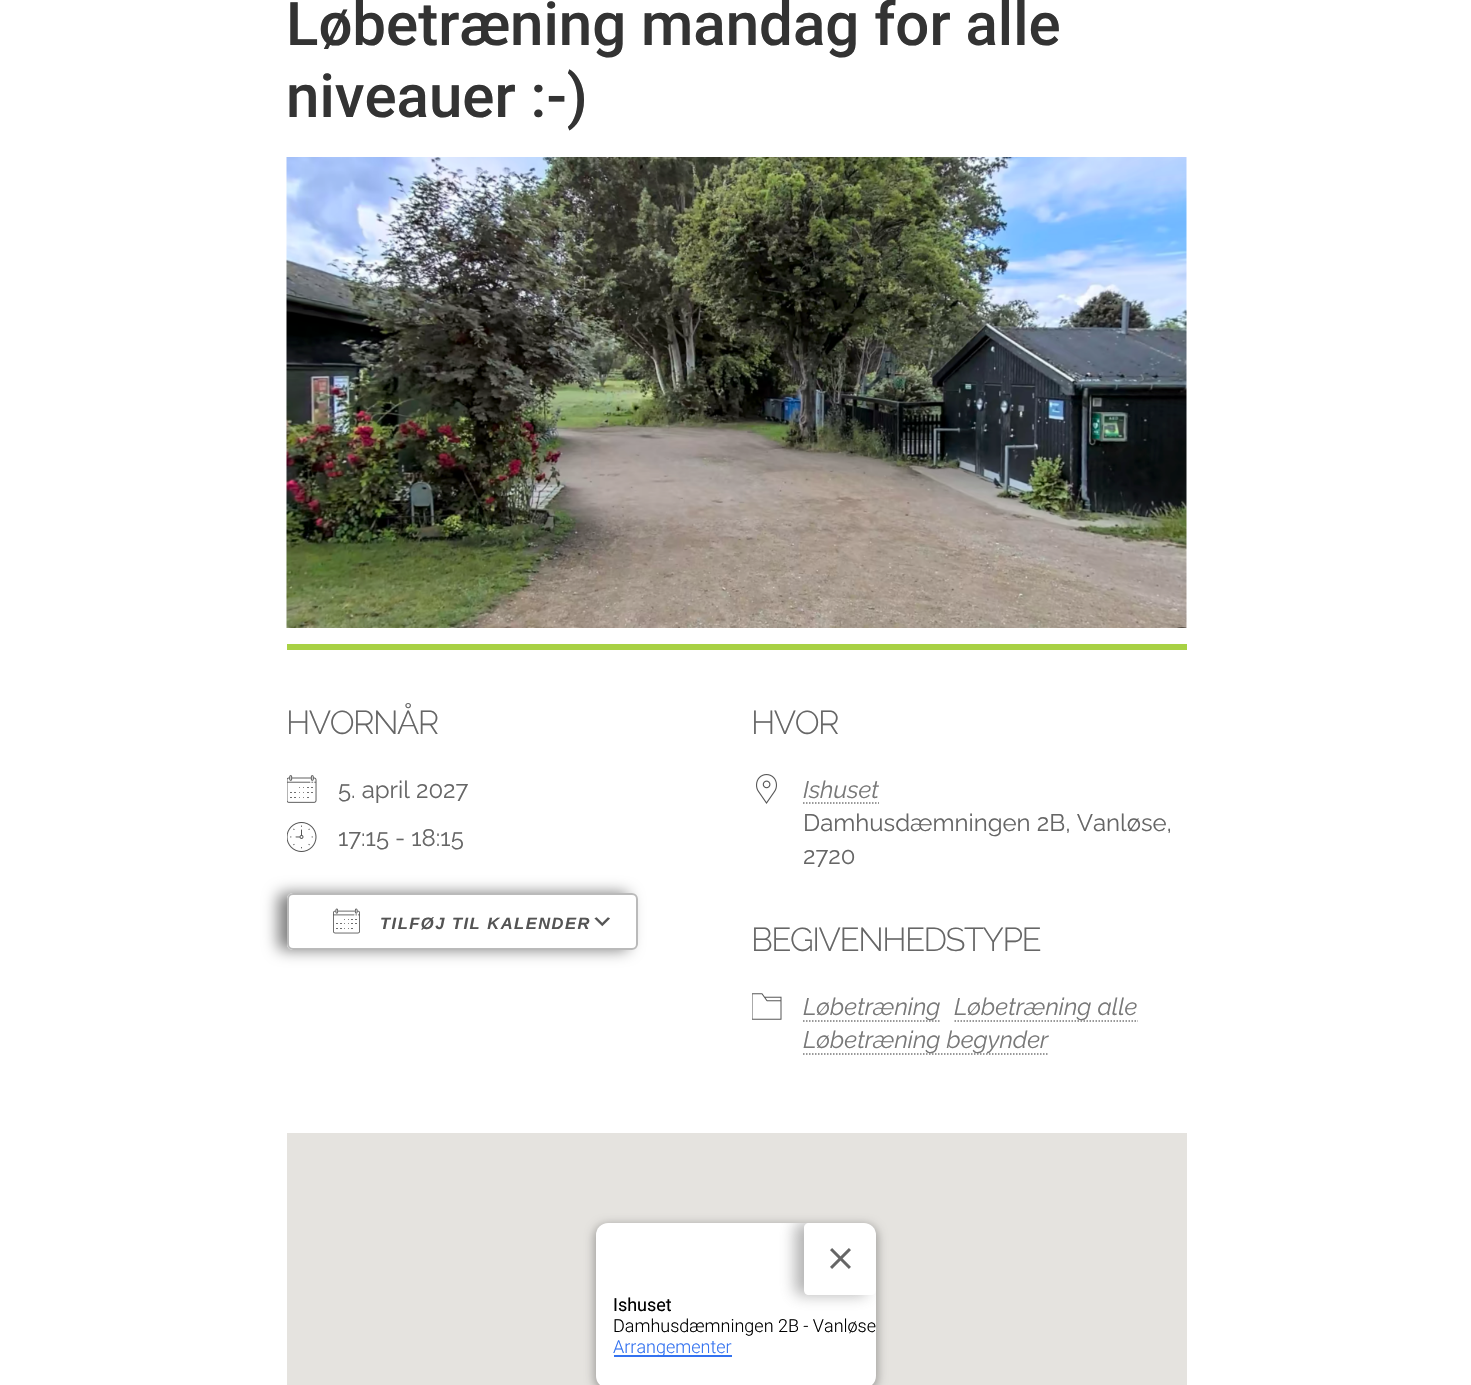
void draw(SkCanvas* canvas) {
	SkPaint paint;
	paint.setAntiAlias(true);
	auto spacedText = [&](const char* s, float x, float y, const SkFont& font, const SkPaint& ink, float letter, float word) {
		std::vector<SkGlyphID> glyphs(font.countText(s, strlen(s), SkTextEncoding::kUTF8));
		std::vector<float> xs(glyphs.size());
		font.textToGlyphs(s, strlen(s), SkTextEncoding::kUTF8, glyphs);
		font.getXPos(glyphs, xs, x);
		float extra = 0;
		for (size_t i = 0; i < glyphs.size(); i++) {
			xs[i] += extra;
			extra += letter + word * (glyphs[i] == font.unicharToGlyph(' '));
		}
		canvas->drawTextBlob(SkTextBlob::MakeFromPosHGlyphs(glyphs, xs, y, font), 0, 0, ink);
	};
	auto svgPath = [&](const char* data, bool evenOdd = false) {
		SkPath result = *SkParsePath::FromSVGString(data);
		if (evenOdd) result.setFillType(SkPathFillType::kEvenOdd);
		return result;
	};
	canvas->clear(0xffffffff);
	SkFont f1(fontMgr->matchFamilyStyle("Roboto", SkFontStyle(500, SkFontStyle::kNormal_Width, SkFontStyle::kUpright_Slant)), 60);
	f1.setSubpixel(true);
	paint.setColor(0xff333333);
	canvas->drawString("Løbetræning mandag for alle", 286, 45, f1, paint);
	canvas->drawString("niveauer :-)", 286, 117, f1, paint);
	canvas->drawImageRect(SkImages::DeferredFromEncodedData(SkData::MakeFromFileName("img1.png")), SkRect::MakeXYWH(286, 157, 901, 471), SkSamplingOptions());
	paint.setColor(0xffa8d144);
	canvas->drawRect(SkRect::MakeXYWH(287, 644, 900, 6), paint);
	SkFont f2(fontMgr->matchFamilyStyle("Raleway", SkFontStyle(300, SkFontStyle::kNormal_Width, SkFontStyle::kUpright_Slant)), 33);
	f2.setSubpixel(true);
	paint.setColor(0xff666666);
	spacedText("HVORNÅR", 286, 734, f2, paint, -1.5, 0);
	canvas->drawImageRect(SkImages::DeferredFromEncodedData(SkData::MakeFromFileName("img2.png")), SkRect::MakeXYWH(287, 775, 30, 28), SkSamplingOptions());
	SkFont f3(fontMgr->matchFamilyStyle("Raleway", SkFontStyle::Normal()), 24);
	f3.setSubpixel(true);
	canvas->drawString("5. april 2027", 338, 798, f3, paint);
	canvas->drawImageRect(SkImages::DeferredFromEncodedData(SkData::MakeFromFileName("img3.png")), SkRect::MakeXYWH(287, 822, 30, 30), SkSamplingOptions());
	canvas->drawString("17:15 - 18:15", 338, 846, f3, paint);
	canvas->save();
	canvas->clipPath(svgPath("M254 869H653V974H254ZM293 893H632C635.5 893 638 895.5 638 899V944C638 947.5 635.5 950 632 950H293C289.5 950 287 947.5 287 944V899C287 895.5 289.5 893 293 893Z", true), true);
	paint.setColor(0x80000000);
	paint.setMaskFilter(SkMaskFilter::MakeBlur(kNormal_SkBlurStyle, 7.5));
	canvas->drawRoundRect(SkRect::MakeXYWH(278, 893, 351, 57), 6, 6, paint);
	paint.setMaskFilter(nullptr);
	canvas->restore();
	canvas->drawImageRect(SkImages::DeferredFromEncodedData(SkData::MakeFromFileName("img4.png")), SkRect::MakeXYWH(594, 917, 16, 10), SkSamplingOptions());
	paint.setStroke(true);
	paint.setStrokeWidth(2);
	paint.setColor(0xffbababa);
	canvas->drawRoundRect(SkRect::MakeXYWH(288, 894, 349, 55), 5, 5, paint);
	canvas->drawImageRect(SkImages::DeferredFromEncodedData(SkData::MakeFromFileName("img5.png")), SkRect::MakeXYWH(333, 908, 27, 26), SkSamplingOptions());
	SkFont f4(fontMgr->matchFamilyStyle("Liberation Sans", SkFontStyle::BoldItalic()), 16.5);
	f4.setSubpixel(true);
	paint.setStroke(false);
	paint.setColor(0xff545454);
	spacedText("TILFØJ TIL KALENDER", 380, 929, f4, paint, 1.5, 0);
	paint.setColor(0xff666666);
	spacedText("HVOR", 751, 734, f2, paint, -1.5, 0);
	canvas->drawImageRect(SkImages::DeferredFromEncodedData(SkData::MakeFromFileName("img6.png")), SkRect::MakeXYWH(756, 774, 21, 30), SkSamplingOptions());
	SkFont f5(fontMgr->matchFamilyStyle("Raleway", SkFontStyle::Italic()), 24);
	f5.setSubpixel(true);
	paint.setColor(0xff787878);
	canvas->drawString("Ishuset", 803, 798, f5, paint);
	paint.setStroke(true);
	paint.setStrokeWidth(1.5);
	paint.setPathEffect(SkDashPathEffect::Make({{1.5f, 1.5f}}, 0));
	canvas->drawPath(svgPath("M803 803H879"), paint);
	paint.setPathEffect(nullptr);
	paint.setStroke(false);
	paint.setColor(0xff666666);
	canvas->drawString("Damhusdæmningen 2B, Vanløse,", 803, 831, f3, paint);
	canvas->drawString("2720", 803, 864, f3, paint);
	spacedText("BEGIVENHEDSTYPE", 751, 951, f2, paint, -1.5, 0);
	canvas->drawImageRect(SkImages::DeferredFromEncodedData(SkData::MakeFromFileName("img7.png")), SkRect::MakeXYWH(752, 993, 30, 27), SkSamplingOptions());
	paint.setStroke(true);
	paint.setColor(0xff787878);
	paint.setPathEffect(SkDashPathEffect::Make({{1.5f, 1.5f}}, 0));
	canvas->drawPath(svgPath("M803 1021H941"), paint);
	paint.setPathEffect(nullptr);
	paint.setStroke(false);
	canvas->drawString("Løbetræning", 803, 1015, f5, paint);
	paint.setStroke(true);
	paint.setPathEffect(SkDashPathEffect::Make({{1.5f, 1.5f}}, 0));
	canvas->drawPath(svgPath("M954.5 1021H1138"), paint);
	paint.setPathEffect(nullptr);
	paint.setStroke(false);
	canvas->drawString("Løbetræning alle", 954, 1015, f5, paint);
	paint.setStroke(true);
	paint.setPathEffect(SkDashPathEffect::Make({{1.5f, 1.5f}}, 0));
	canvas->drawPath(svgPath("M803 1054H1048.5"), paint);
	paint.setPathEffect(nullptr);
	paint.setStroke(false);
	canvas->drawString("Løbetræning begynder", 803, 1048, f5, paint);
	paint.setColor(0xffe5e3df);
	canvas->drawRect(SkRect::MakeXYWH(287, 1133, 900, 252), paint);
	paint.setColor(0x4d000000);
	paint.setMaskFilter(SkMaskFilter::MakeBlur(kNormal_SkBlurStyle, 5));
	canvas->drawRoundRect(SkRect::MakeXYWH(594, 1224, 284, 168), 14, 14, paint);
	paint.setMaskFilter(nullptr);
	paint.setColor(0xffffffff);
	canvas->drawRoundRect(SkRect::MakeXYWH(596, 1223, 280, 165), 12, 12, paint);
	canvas->save();
	canvas->clipPath(svgPath("M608 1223H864C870.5 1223 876 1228.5 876 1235V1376C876 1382.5 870.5 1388 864 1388H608C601.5 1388 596 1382.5 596 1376V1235C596 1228.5 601.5 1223 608 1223Z"), true);
	canvas->clipPath(svgPath("M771 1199H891V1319H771ZM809 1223H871C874 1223 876 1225 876 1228V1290C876 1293 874 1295 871 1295H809C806 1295 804 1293 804 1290V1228C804 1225 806 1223 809 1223Z", true), true);
	paint.setColor(0x80666666);
	paint.setMaskFilter(SkMaskFilter::MakeBlur(kNormal_SkBlurStyle, 7.5));
	canvas->drawRoundRect(SkRect::MakeXYWH(795, 1223, 72, 72), 5, 5, paint);
	paint.setMaskFilter(nullptr);
	canvas->restore();
	canvas->drawImageRect(SkImages::DeferredFromEncodedData(SkData::MakeFromFileName("img8.png")), SkRect::MakeXYWH(830, 1248, 21, 21), SkSamplingOptions());
	SkFont f6(fontMgr->matchFamilyStyle("Roboto", SkFontStyle::Normal()), 18);
	f6.setSubpixel(true);
	paint.setColor(0xff000000);
	canvas->drawString("Ishuset", 613, 1311, f6, paint);
	SkFont f7(fontMgr->matchFamilyStyle("Roboto", SkFontStyle(300, SkFontStyle::kNormal_Width, SkFontStyle::kUpright_Slant)), 18);
	f7.setSubpixel(true);
	canvas->drawString("Damhusdæmningen 2B - Vanløse", 613, 1332, f7, paint);
	paint.setColor(0xff3372f0);
	canvas->drawRect(SkRect::MakeXYWH(614, 1355, 118, 2), paint);
	canvas->drawString("Arrangementer", 613, 1353, f7, paint);
}
